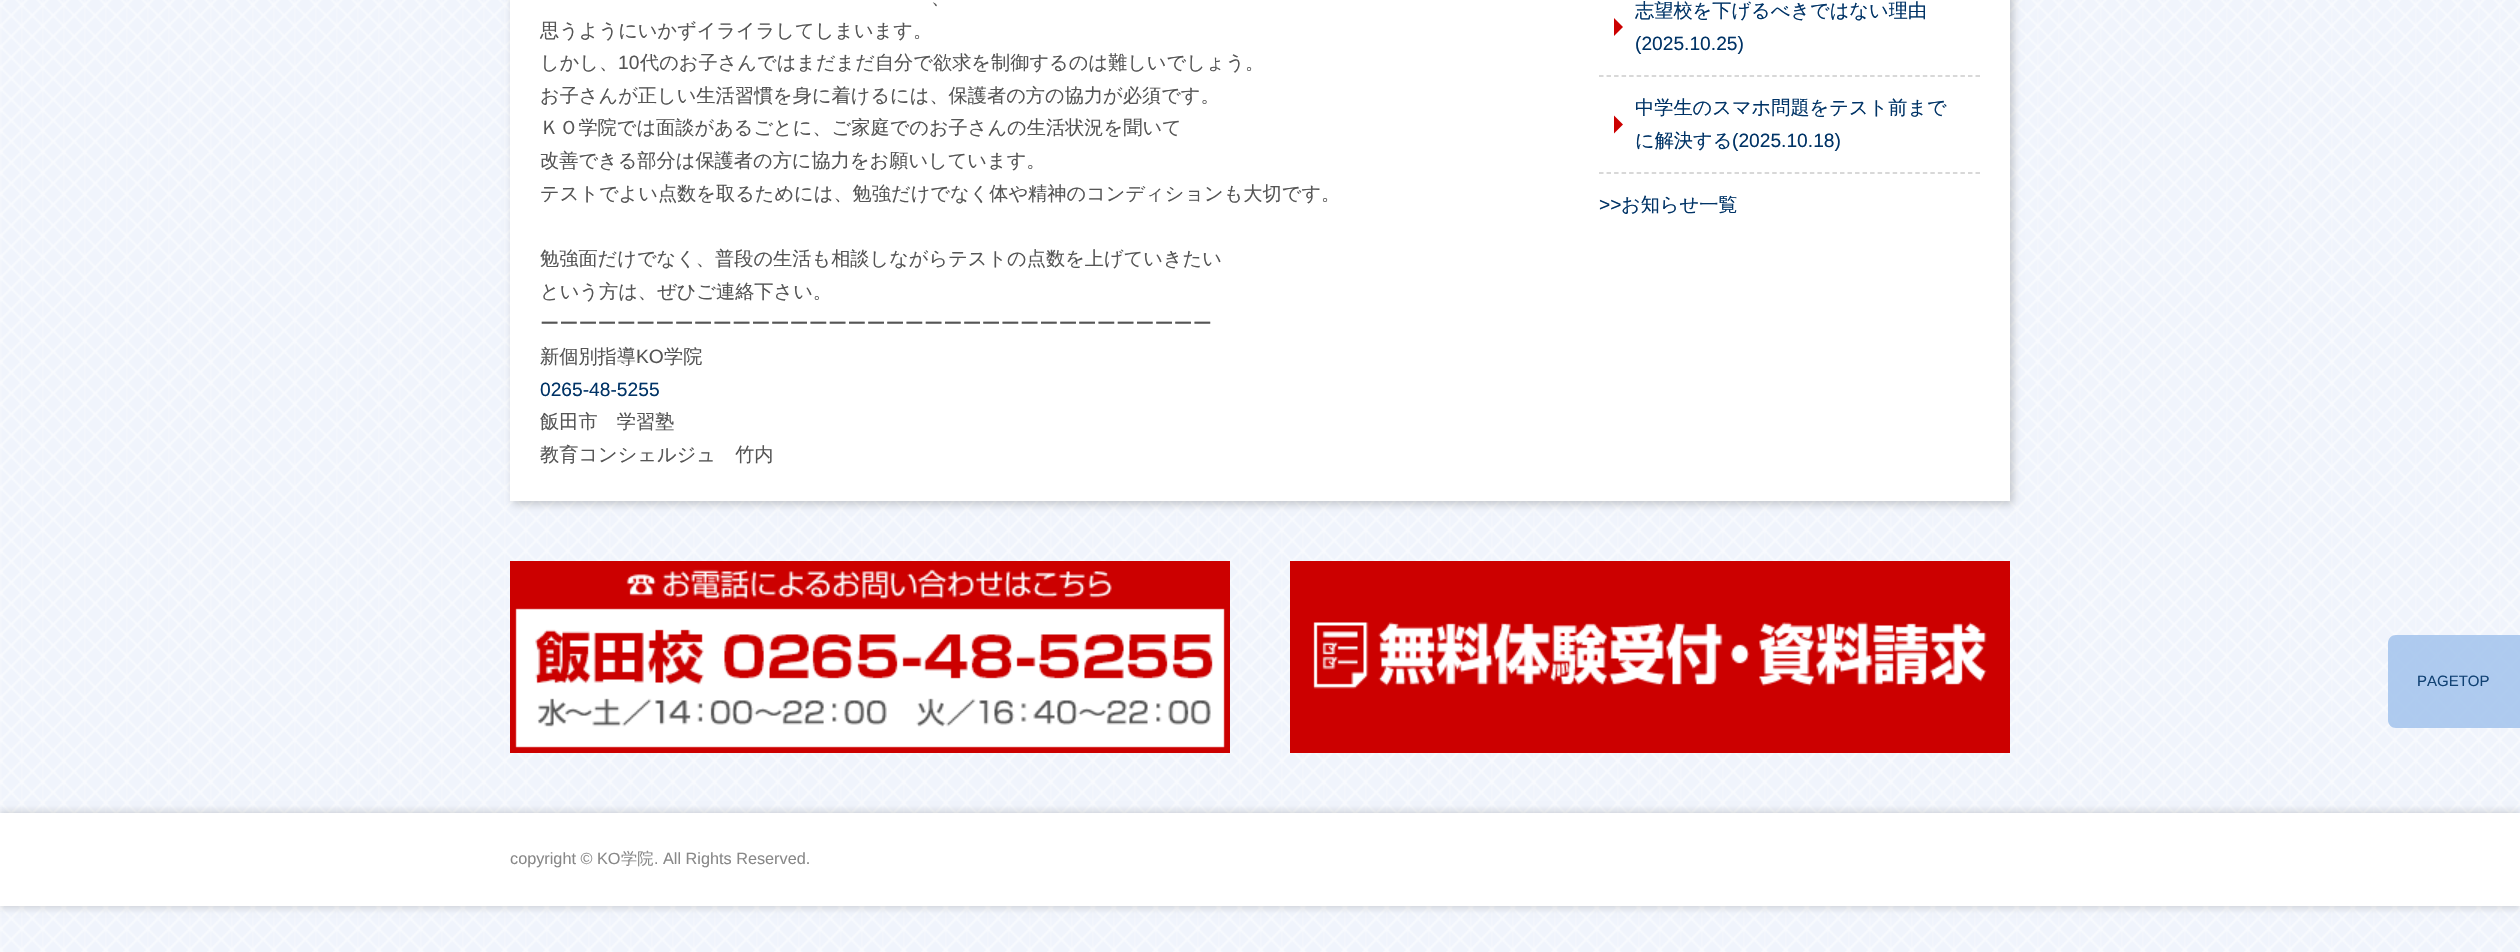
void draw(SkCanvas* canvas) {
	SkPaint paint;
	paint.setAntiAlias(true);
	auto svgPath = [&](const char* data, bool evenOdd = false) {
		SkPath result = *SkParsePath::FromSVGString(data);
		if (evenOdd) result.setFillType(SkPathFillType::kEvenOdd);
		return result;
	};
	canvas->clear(0xffffffff);
	canvas->drawImageRect(SkImages::DeferredFromEncodedData(SkData::MakeFromFileName("img1.png")), SkRect::MakeXYWH(0, 0, 2520, 952), SkSamplingOptions());
	paint.setColor(0x33000000);
	paint.setMaskFilter(SkMaskFilter::MakeBlur(kNormal_SkBlurStyle, 4));
	canvas->drawRect(SkRect::MakeXYWH(513, -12, 1500, 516), paint);
	paint.setMaskFilter(nullptr);
	paint.setColor(0xffffffff);
	canvas->drawRect(SkRect::MakeXYWH(510, 0, 1500, 501), paint);
	SkFont f1(fontMgr->matchFamilyStyle("WenQuanYi Zen Hei", SkFontStyle(500, SkFontStyle::kNormal_Width, SkFontStyle::kUpright_Slant)), 19.2);
	f1.setSubpixel(true);
	paint.setColor(0xff555555);
	canvas->drawString("、", 931, 4, f1, paint);
	canvas->drawString("思うようにいかずイライラしてしまいます。", 540, 37, f1, paint);
	canvas->drawString("しかし、", 540, 69, f1, paint);
	SkFont f2(fontMgr->matchFamilyStyle("Liberation Sans", SkFontStyle::Normal()), 19.2);
	f2.setSubpixel(true);
	canvas->drawString("10", 618, 69, f2, paint);
	canvas->drawString("代のお子さんではまだまだ自分で欲求を制御するのは難しいでしょう。", 640, 69, f1, paint);
	canvas->drawString("お子さんが正しい生活習慣を身に着けるには、保護者の方の協力が必須です。", 540, 102, f1, paint);
	canvas->drawString("ＫＯ学院では面談があるごとに、ご家庭でのお子さんの生活状況を聞いて", 540, 134, f1, paint);
	canvas->drawString("改善できる部分は保護者の方に協力をお願いしています。", 540, 167, f1, paint);
	canvas->drawString("テストでよい点数を取るためには、勉強だけでなく体や精神のコンディションも大切です。", 540, 200, f1, paint);
	canvas->drawString("勉強面だけでなく、普段の生活も相談しながらテストの点数を上げていきたい", 540, 265, f1, paint);
	canvas->drawString("という方は、ぜひご連絡下さい。", 540, 298, f1, paint);
	canvas->drawString("ーーーーーーーーーーーーーーーーーーーーーーーーーーーーーーーーーーー", 540, 330, f1, paint);
	canvas->drawString("新個別指導", 540, 363, f1, paint);
	canvas->drawString("KO", 636, 363, f2, paint);
	canvas->drawString("学院", 664, 363, f1, paint);
	paint.setColor(0xff003366);
	canvas->drawString("0265-48-5255", 540, 396, f2, paint);
	paint.setColor(0xff555555);
	canvas->drawString("飯田市　学習塾", 540, 428, f1, paint);
	canvas->drawString("教育コンシェルジュ　竹内", 540, 461, f1, paint);
	paint.setStroke(true);
	paint.setStrokeWidth(1.5);
	paint.setColor(0xffcccccc);
	paint.setPathEffect(SkDashPathEffect::Make({{4.5f, 3.03f}}, 0));
	canvas->drawPath(svgPath("M1599 76H1980"), paint);
	paint.setPathEffect(nullptr);
	paint.setStroke(false);
	paint.setColor(0xffcc0000);
	canvas->drawPath(svgPath("M1614 36V18L1623 27Z"), paint);
	paint.setColor(0xff003366);
	canvas->drawString("志望校を下げるべきではない理由", 1635, 17, f1, paint);
	canvas->drawString("(2025.10.25)", 1635, 50, f2, paint);
	paint.setStroke(true);
	paint.setColor(0xffcccccc);
	paint.setPathEffect(SkDashPathEffect::Make({{4.5f, 3.03f}}, 0));
	canvas->drawPath(svgPath("M1599 173H1980"), paint);
	paint.setPathEffect(nullptr);
	paint.setStroke(false);
	paint.setColor(0xffcc0000);
	canvas->drawPath(svgPath("M1614 133.5V115.5L1623 124.5Z"), paint);
	paint.setColor(0xff003366);
	canvas->drawString("中学生のスマホ問題をテスト前まで", 1635, 114, f1, paint);
	canvas->drawString("に解決する", 1635, 147, f1, paint);
	canvas->drawString("(2025.10.18)", 1732, 147, f2, paint);
	canvas->drawString(">>", 1599, 211, f2, paint);
	canvas->drawString("お知らせ一覧", 1621, 211, f1, paint);
	canvas->drawImageRect(SkImages::DeferredFromEncodedData(SkData::MakeFromFileName("img2.png")), SkRect::MakeXYWH(510, 561, 720, 192), SkSamplingOptions());
	canvas->drawImageRect(SkImages::DeferredFromEncodedData(SkData::MakeFromFileName("img3.png")), SkRect::MakeXYWH(1290, 561, 720, 192), SkSamplingOptions());
	paint.setColor(0xe6a6c5ed);
	canvas->drawPath(svgPath("M2396 635H2520V728H2396C2391.5 728 2388 724.5 2388 720V643C2388 638.5 2391.5 635 2396 635Z"), paint);
	SkFont f3(fontMgr->matchFamilyStyle("Liberation Sans", SkFontStyle::Normal()), 15);
	f3.setSubpixel(true);
	paint.setColor(0xff114274);
	canvas->drawString("PAGETOP", 2417, 686, f3, paint);
	paint.setColor(0x1a000000);
	paint.setMaskFilter(SkMaskFilter::MakeBlur(kNormal_SkBlurStyle, 3));
	canvas->drawRect(SkRect::MakeXYWH(0, 816, 2520, 93), paint);
	paint.setMaskFilter(nullptr);
	paint.setMaskFilter(SkMaskFilter::MakeBlur(kNormal_SkBlurStyle, 3));
	canvas->drawRect(SkRect::MakeXYWH(0, 810, 2520, 93), paint);
	paint.setMaskFilter(nullptr);
	paint.setColor(0xffffffff);
	canvas->drawRect(SkRect::MakeXYWH(0, 813, 2520, 93), paint);
	SkFont f4(fontMgr->matchFamilyStyle("Liberation Sans", SkFontStyle::Normal()), 16.25);
	f4.setSubpixel(true);
	paint.setColor(0xff888888);
	canvas->drawString("copyright © KO", 510, 864, f4, paint);
	SkFont f5(fontMgr->matchFamilyStyle("WenQuanYi Zen Hei", SkFontStyle(500, SkFontStyle::kNormal_Width, SkFontStyle::kUpright_Slant)), 16.25);
	f5.setSubpixel(true);
	canvas->drawString("学院", 621, 864, f5, paint);
	canvas->drawString(". All Rights Reserved.", 654, 864, f4, paint);
}
